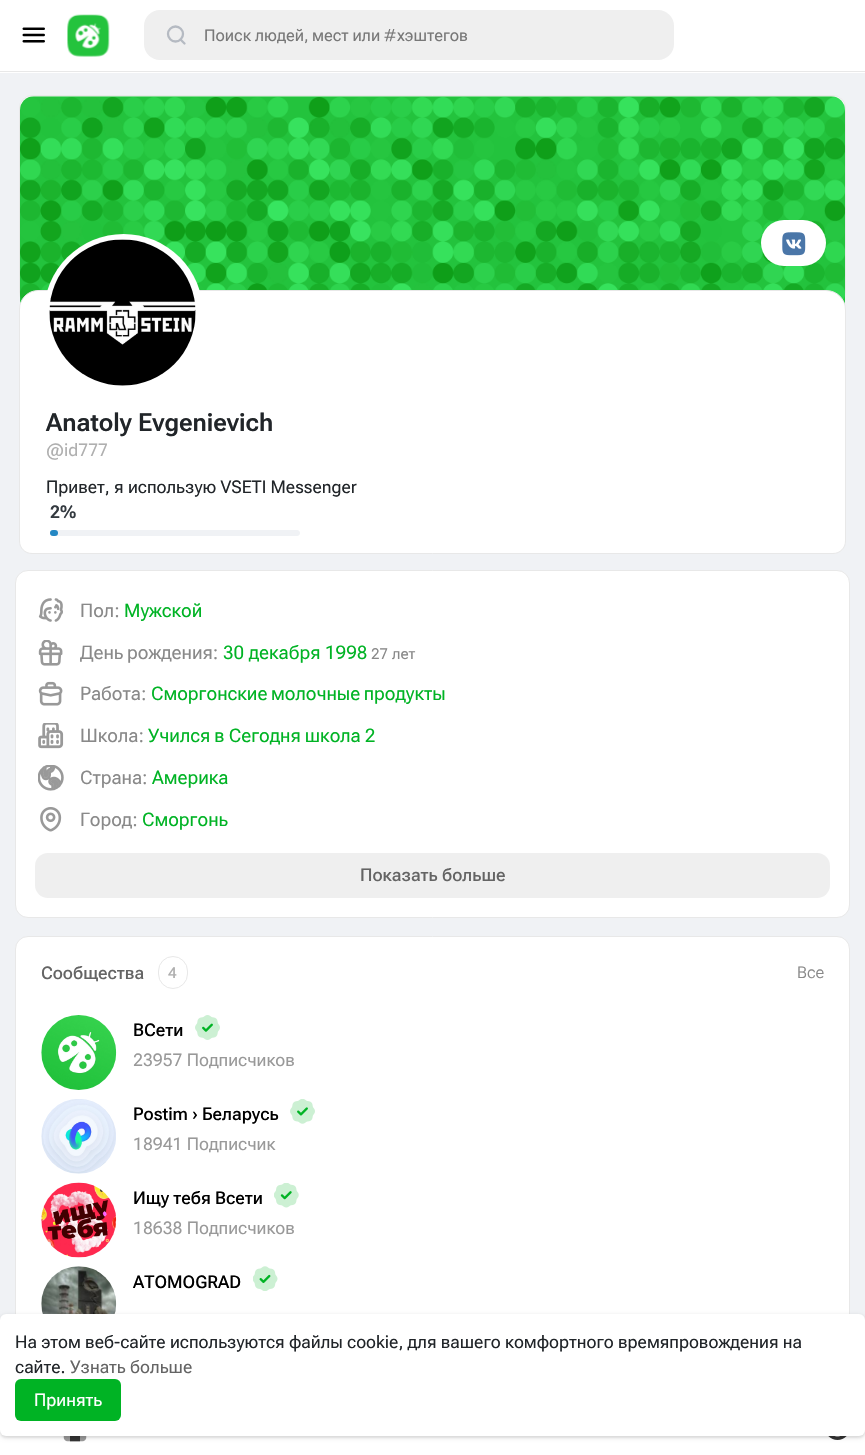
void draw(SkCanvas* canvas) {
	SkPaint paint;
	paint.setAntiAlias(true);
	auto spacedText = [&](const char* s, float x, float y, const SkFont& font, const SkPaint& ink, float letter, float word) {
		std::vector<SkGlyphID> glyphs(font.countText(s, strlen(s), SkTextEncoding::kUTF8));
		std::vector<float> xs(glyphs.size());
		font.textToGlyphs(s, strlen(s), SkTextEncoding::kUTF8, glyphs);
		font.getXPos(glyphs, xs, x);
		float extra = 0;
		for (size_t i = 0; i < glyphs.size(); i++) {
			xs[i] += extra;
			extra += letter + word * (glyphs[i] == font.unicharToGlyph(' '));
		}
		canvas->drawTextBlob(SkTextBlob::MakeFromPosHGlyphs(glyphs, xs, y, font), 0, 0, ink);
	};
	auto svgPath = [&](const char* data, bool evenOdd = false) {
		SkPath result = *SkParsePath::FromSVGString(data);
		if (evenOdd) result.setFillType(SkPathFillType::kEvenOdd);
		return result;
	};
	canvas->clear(0xfff0f2f5);
	paint.setColor(0xffffffff);
	canvas->drawRect(SkRect::MakeXYWH(0, 0, 865, 73), paint);
	paint.setColor(0xffe8e8e8);
	canvas->drawRect(SkRect::MakeXYWH(0, 71, 865, 1), paint);
	canvas->drawImageRect(SkImages::DeferredFromEncodedData(SkData::MakeFromFileName("img1.png")), SkRect::MakeXYWH(22, 27, 23, 16), SkSamplingOptions());
	canvas->drawImageRect(SkImages::DeferredFromEncodedData(SkData::MakeFromFileName("img2.png")), SkRect::MakeXYWH(67, 14, 43, 43), SkSamplingOptions());
	paint.setColor(0xffefefef);
	canvas->drawRoundRect(SkRect::MakeXYWH(144, 10, 530, 50), 16, 16, paint);
	paint.setStroke(true);
	paint.setStrokeWidth(2.3);
	paint.setColor(0xffb5bac2);
	canvas->drawCircle(175.5, 34, 7.5, paint);
	paint.setStrokeCap(SkPaint::kRound_Cap);
	paint.setStrokeJoin(SkPaint::kRound_Join);
	canvas->drawPath(svgPath("M184.5 43.5L180.5 39.5"), paint);
	SkFont f1(fontMgr->matchFamilyStyle("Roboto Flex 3", SkFontStyle::Normal()), 16.25);
	f1.setSubpixel(true);
	paint.setStroke(false);
	paint.setColor(0xff787878);
	canvas->drawString("Поиск людей", 204, 41, f1, paint);
	SkFont f2(fontMgr->matchFamilyStyle("Roboto Flex", SkFontStyle::Normal()), 16.25);
	f2.setSubpixel(true);
	canvas->drawString(",", 304, 41, f2, paint);
	canvas->drawString("мест или", 312, 41, f1, paint);
	canvas->drawString("#", 384, 41, f2, paint);
	canvas->drawString("хэштегов", 397, 41, f1, paint);
	paint.setColor(0xffffffff);
	canvas->drawRect(SkRect::MakeXYWH(0, 1430, 865, 25), paint);
	canvas->drawImageRect(SkImages::DeferredFromEncodedData(SkData::MakeFromFileName("img3.png")), SkRect::MakeXYWH(828, 1436, 19, 4), SkSamplingOptions());
	canvas->drawRoundRect(SkRect::MakeXYWH(19.5, 95.5, 826, 209), 12.5, 12.5, paint);
	paint.setStroke(true);
	paint.setStrokeWidth(1);
	paint.setStrokeCap(SkPaint::kButt_Cap);
	paint.setStrokeJoin(SkPaint::kMiter_Join);
	paint.setColor(0xffe8e8e8);
	canvas->drawRoundRect(SkRect::MakeXYWH(19.5, 95.5, 826, 209), 12.5, 12.5, paint);
	canvas->drawImageRect(SkImages::DeferredFromEncodedData(SkData::MakeFromFileName("img4.png")), SkRect::MakeXYWH(20, 96, 825, 208), SkSamplingOptions());
	paint.setStroke(false);
	paint.setColor(0xffffffff);
	canvas->drawRoundRect(SkRect::MakeXYWH(761, 220, 65, 46), 23, 23, paint);
	canvas->drawImageRect(SkImages::DeferredFromEncodedData(SkData::MakeFromFileName("img5.png")), SkRect::MakeXYWH(782, 232, 24, 24), SkSamplingOptions());
	canvas->drawPath(svgPath("M38 290.5H826C837 290.5 845.5 299 845.5 310V541C845.5 548 840 553.5 833 553.5H32C25 553.5 19.5 548 19.5 541V309C19.5 299 28 290.5 38 290.5Z"), paint);
	paint.setStroke(true);
	paint.setColor(0xffe8e8e8);
	canvas->drawPath(svgPath("M38 290.5H826C837 290.5 845.5 299 845.5 310V541C845.5 548 840 553.5 833 553.5H32C25 553.5 19.5 548 19.5 541V309C19.5 299 28 290.5 38 290.5Z"), paint);
	paint.setStroke(false);
	paint.setColor(0xffffffff);
	canvas->drawCircle(123.5, 313.5, 79.5, paint);
	canvas->drawImageRect(SkImages::DeferredFromEncodedData(SkData::MakeFromFileName("img6.png")), SkRect::MakeXYWH(49, 239, 147, 147), SkSamplingOptions());
	SkFont f3(fontMgr->matchFamilyStyle("Roboto Flex", SkFontStyle(600, SkFontStyle::kNormal_Width, SkFontStyle::kUpright_Slant)), 25);
	f3.setSubpixel(true);
	paint.setColor(0xff212529);
	canvas->drawString("Anatoly Evgenievich", 46, 431, f3, paint);
	SkFont f4(fontMgr->matchFamilyStyle("Roboto Flex", SkFontStyle::Normal()), 17.5);
	f4.setSubpixel(true);
	paint.setColor(0xffafafaf);
	canvas->drawString("@id777", 46, 456, f4, paint);
	paint.setColor(0xff212529);
	canvas->drawString("Привет, я использую VSETI Messenger", 46, 493, f4, paint);
	SkFont f5(fontMgr->matchFamilyStyle("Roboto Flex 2", SkFontStyle(600, SkFontStyle::kNormal_Width, SkFontStyle::kUpright_Slant)), 17.5);
	f5.setSubpixel(true);
	paint.setColor(0xff343a40);
	canvas->drawString("2%", 50, 518, f5, paint);
	paint.setColor(0xfff0f2f5);
	canvas->drawRoundRect(SkRect::MakeXYWH(50.5, 530.5, 249, 5), 2.5, 2.5, paint);
	paint.setStroke(true);
	canvas->drawRoundRect(SkRect::MakeXYWH(50.5, 530.5, 249, 5), 2.5, 2.5, paint);
	paint.setStroke(false);
	paint.setColor(0xff2487c3);
	canvas->drawRoundRect(SkRect::MakeXYWH(50, 530, 8, 6), 3, 3, paint);
	paint.setColor(0xffffffff);
	canvas->drawRoundRect(SkRect::MakeXYWH(15.5, 570.5, 834, 347), 12.5, 12.5, paint);
	paint.setStroke(true);
	paint.setColor(0xffe8e8e8);
	canvas->drawRoundRect(SkRect::MakeXYWH(15.5, 570.5, 834, 347), 12.5, 12.5, paint);
	canvas->drawImageRect(SkImages::DeferredFromEncodedData(SkData::MakeFromFileName("img7.png")), SkRect::MakeXYWH(38, 598, 25, 24), SkSamplingOptions());
	SkFont f6(fontMgr->matchFamilyStyle("Roboto Flex", SkFontStyle::Normal()), 18.75);
	f6.setSubpixel(true);
	paint.setStroke(false);
	paint.setColor(0xff898989);
	canvas->drawString("Пол:", 80, 617, f6, paint);
	paint.setColor(0xff00b324);
	canvas->drawString("Мужской", 124, 617, f6, paint);
	canvas->drawImageRect(SkImages::DeferredFromEncodedData(SkData::MakeFromFileName("img8.png")), SkRect::MakeXYWH(38, 640, 25, 26), SkSamplingOptions());
	paint.setColor(0xff898989);
	spacedText("День рождения:", 80, 659, f6, paint, 0, -1);
	paint.setColor(0xff00b324);
	canvas->drawString("30 декабря 1998", 223, 659, f6, paint);
	SkFont f7(fontMgr->matchFamilyStyle("Roboto Flex", SkFontStyle::Normal()), 15);
	f7.setSubpixel(true);
	paint.setColor(0xff898989);
	canvas->drawString("27", 371, 659, f7, paint);
	SkFont f8(fontMgr->matchFamilyStyle("Roboto Flex 2", SkFontStyle::Normal()), 15);
	f8.setSubpixel(true);
	canvas->drawString("лет", 392, 659, f8, paint);
	canvas->drawImageRect(SkImages::DeferredFromEncodedData(SkData::MakeFromFileName("img9.png")), SkRect::MakeXYWH(38, 681, 25, 25), SkSamplingOptions());
	canvas->drawString("Работа:", 80, 700, f6, paint);
	paint.setColor(0xff00b324);
	spacedText("Сморгонские молочные продукты", 151, 700, f6, paint, 0, -1);
	canvas->drawImageRect(SkImages::DeferredFromEncodedData(SkData::MakeFromFileName("img10.png")), SkRect::MakeXYWH(38, 723, 26, 26), SkSamplingOptions());
	paint.setColor(0xff898989);
	canvas->drawString("Школа:", 80, 742, f6, paint);
	paint.setColor(0xff00b324);
	spacedText("Учился в Сегодня школа 2", 148, 742, f6, paint, 0, -0.5);
	canvas->drawImageRect(SkImages::DeferredFromEncodedData(SkData::MakeFromFileName("img11.png")), SkRect::MakeXYWH(38, 765, 26, 26), SkSamplingOptions());
	paint.setColor(0xff898989);
	canvas->drawString("Страна:", 80, 784, f6, paint);
	paint.setColor(0xff00b324);
	canvas->drawString("Америка", 152, 784, f6, paint);
	canvas->drawImageRect(SkImages::DeferredFromEncodedData(SkData::MakeFromFileName("img12.png")), SkRect::MakeXYWH(40, 807, 22, 25), SkSamplingOptions());
	paint.setColor(0xff898989);
	canvas->drawString("Город:", 80, 826, f6, paint);
	paint.setColor(0xff00b324);
	canvas->drawString("Сморгонь", 142, 826, f6, paint);
	paint.setColor(0xffefefef);
	canvas->drawRoundRect(SkRect::MakeXYWH(35, 853, 795, 45), 13, 13, paint);
	SkFont f9(fontMgr->matchFamilyStyle("Roboto Flex", SkFontStyle(500, SkFontStyle::kNormal_Width, SkFontStyle::kUpright_Slant)), 17.5);
	f9.setSubpixel(true);
	paint.setColor(0xff646464);
	canvas->drawString("Показать больше", 360, 881, f9, paint);
	paint.setColor(0xffffffff);
	canvas->drawRoundRect(SkRect::MakeXYWH(15.5, 936.5, 834, 439), 12.5, 12.5, paint);
	paint.setStroke(true);
	paint.setColor(0xffe8e8e8);
	canvas->drawRoundRect(SkRect::MakeXYWH(15.5, 936.5, 834, 439), 12.5, 12.5, paint);
	paint.setStroke(false);
	paint.setColor(0xff646464);
	canvas->drawString("Сообщества", 41, 979, f9, paint);
	paint.setStroke(true);
	paint.setColor(0xffe8e8e8);
	canvas->drawRoundRect(SkRect::MakeXYWH(158.5, 956.5, 29, 32), 14.5, 14.5, paint);
	SkFont f10(fontMgr->matchFamilyStyle("Roboto Flex 2", SkFontStyle(500, SkFontStyle::kNormal_Width, SkFontStyle::kUpright_Slant)), 15);
	f10.setSubpixel(true);
	paint.setStroke(false);
	paint.setColor(0xffafafaf);
	canvas->drawString("4", 168, 978, f10, paint);
	SkFont f11(fontMgr->matchFamilyStyle("Roboto Flex", SkFontStyle(300, SkFontStyle::kNormal_Width, SkFontStyle::kUpright_Slant)), 16.25);
	f11.setSubpixel(true);
	paint.setColor(0xff898989);
	canvas->drawString("Все", 797, 978, f11, paint);
	canvas->drawImageRect(SkImages::DeferredFromEncodedData(SkData::MakeFromFileName("img13.png")), SkRect::MakeXYWH(41, 1015, 76, 75), SkSamplingOptions());
	paint.setColor(0xff000000);
	canvas->drawString("ВСети", 133, 1036, f9, paint);
	canvas->drawImageRect(SkImages::DeferredFromEncodedData(SkData::MakeFromFileName("img14.png")), SkRect::MakeXYWH(195, 1015, 25, 25), SkSamplingOptions());
	paint.setColor(0xff999999);
	canvas->drawString("23957 Подписчиков", 133, 1066, f4, paint);
	canvas->drawImageRect(SkImages::DeferredFromEncodedData(SkData::MakeFromFileName("img15.png")), SkRect::MakeXYWH(41, 1099, 75, 75), SkSamplingOptions());
	paint.setColor(0xff000000);
	canvas->drawString("Postim › Беларусь", 133, 1120, f9, paint);
	canvas->drawImageRect(SkImages::DeferredFromEncodedData(SkData::MakeFromFileName("img16.png")), SkRect::MakeXYWH(290, 1099, 25, 25), SkSamplingOptions());
	paint.setColor(0xff999999);
	canvas->drawString("18941 Подписчик", 133, 1150, f4, paint);
	canvas->drawImageRect(SkImages::DeferredFromEncodedData(SkData::MakeFromFileName("img17.png")), SkRect::MakeXYWH(41, 1182, 76, 76), SkSamplingOptions());
	paint.setColor(0xff000000);
	canvas->drawString("Ищу тебя Всети", 133, 1204, f9, paint);
	canvas->drawImageRect(SkImages::DeferredFromEncodedData(SkData::MakeFromFileName("img18.png")), SkRect::MakeXYWH(274, 1183, 25, 25), SkSamplingOptions());
	paint.setColor(0xff999999);
	canvas->drawString("18638 Подписчиков", 133, 1234, f4, paint);
	canvas->drawImageRect(SkImages::DeferredFromEncodedData(SkData::MakeFromFileName("img19.png")), SkRect::MakeXYWH(41, 1266, 76, 48), SkSamplingOptions());
	paint.setColor(0xff000000);
	canvas->drawString("ATOMOGRAD", 133, 1288, f9, paint);
	canvas->drawImageRect(SkImages::DeferredFromEncodedData(SkData::MakeFromFileName("img20.png")), SkRect::MakeXYWH(253, 1266, 25, 25), SkSamplingOptions());
	canvas->drawImageRect(SkImages::DeferredFromEncodedData(SkData::MakeFromFileName("img21.png")), SkRect::MakeXYWH(63, 1436, 24, 6), SkSamplingOptions());
	paint.setColor(0x0f000000);
	paint.setMaskFilter(SkMaskFilter::MakeBlur(kNormal_SkBlurStyle, 1));
	canvas->drawRoundRect(SkRect::MakeXYWH(0, 1315, 865, 123), 6, 6, paint);
	paint.setMaskFilter(nullptr);
	paint.setColor(0x1a000000);
	paint.setMaskFilter(SkMaskFilter::MakeBlur(kNormal_SkBlurStyle, 2));
	canvas->drawRoundRect(SkRect::MakeXYWH(0, 1315, 865, 123), 6, 6, paint);
	paint.setMaskFilter(nullptr);
	paint.setColor(0xffffffff);
	canvas->drawRoundRect(SkRect::MakeXYWH(0, 1314, 865, 122), 6, 6, paint);
	paint.setColor(0xff212529);
	canvas->drawString("На этом веб-сайте используются файлы cookie, для вашего комфортного времяпровождения на", 15, 1348, f4, paint);
	canvas->drawString("сайте.", 15, 1373, f4, paint);
	paint.setColor(0xff646464);
	canvas->drawString("Узнать больше", 70, 1373, f4, paint);
	paint.setColor(0xff00b324);
	canvas->drawRoundRect(SkRect::MakeXYWH(15, 1379, 106, 42), 6, 6, paint);
	paint.setColor(0xffffffff);
	canvas->drawString("Принять", 34, 1406, f4, paint);
}
